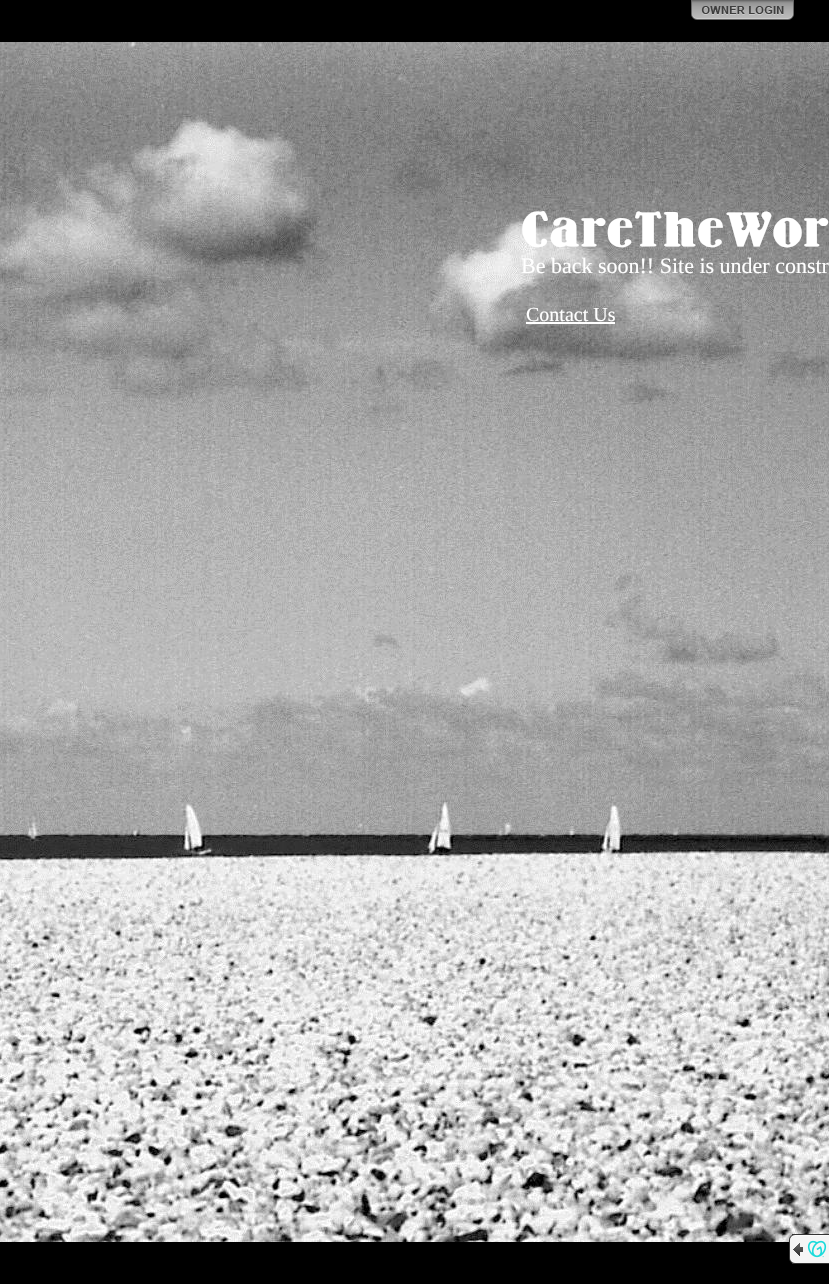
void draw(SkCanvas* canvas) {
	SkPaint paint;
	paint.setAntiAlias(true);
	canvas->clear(0xff000000);
	canvas->drawImageRect(SkImages::DeferredFromEncodedData(SkData::MakeFromFileName("img1.png")), SkRect::MakeXYWH(0, 42, 829, 1200), SkSamplingOptions());
	canvas->drawImageRect(SkImages::DeferredFromEncodedData(SkData::MakeFromFileName("img2.png")), SkRect::MakeXYWH(691, 0, 103, 20), SkSamplingOptions());
	SkFont f1(fontMgr->matchFamilyStyle("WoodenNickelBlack", SkFontStyle(900, SkFontStyle::kNormal_Width, SkFontStyle::kUpright_Slant)), 46);
	f1.setSubpixel(true);
	paint.setColor(0xffffffff);
	canvas->drawString("CareTheWor", 521, 245, f1, paint);
	SkFont f2(fontMgr->matchFamilyStyle("Liberation Serif", SkFontStyle::Normal()), 22);
	f2.setSubpixel(true);
	canvas->drawString("Be back soon!! Site is under constr", 521, 273, f2, paint);
	SkFont f3(fontMgr->matchFamilyStyle("Liberation Serif", SkFontStyle::Normal()), 20);
	f3.setSubpixel(true);
	canvas->drawString("Contact Us", 526, 321, f3, paint);
	canvas->drawRect(SkRect::MakeXYWH(526, 322, 89, 2), paint);
	canvas->drawImageRect(SkImages::DeferredFromEncodedData(SkData::MakeFromFileName("img3.png")), SkRect::MakeXYWH(792, 1234, 37, 30), SkSamplingOptions());
	canvas->drawImageRect(SkImages::DeferredFromEncodedData(SkData::MakeFromFileName("img4.png")), SkRect::MakeXYWH(789, 1235, 14, 28), SkSamplingOptions());
	canvas->drawImageRect(SkImages::DeferredFromEncodedData(SkData::MakeFromFileName("img5.png")), SkRect::MakeXYWH(807, 1240, 20, 18), SkSamplingOptions());
}
